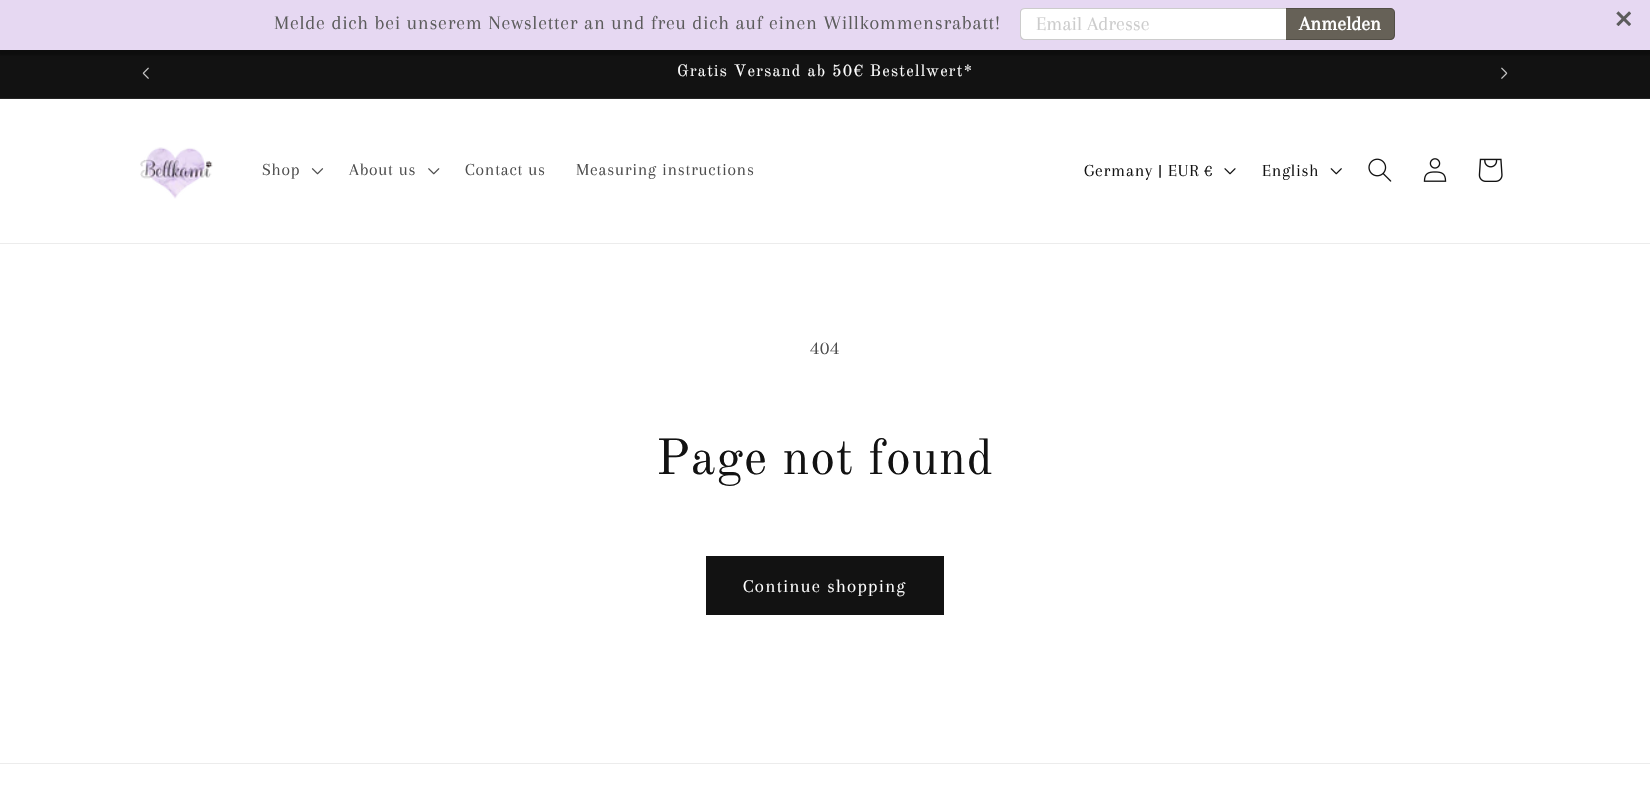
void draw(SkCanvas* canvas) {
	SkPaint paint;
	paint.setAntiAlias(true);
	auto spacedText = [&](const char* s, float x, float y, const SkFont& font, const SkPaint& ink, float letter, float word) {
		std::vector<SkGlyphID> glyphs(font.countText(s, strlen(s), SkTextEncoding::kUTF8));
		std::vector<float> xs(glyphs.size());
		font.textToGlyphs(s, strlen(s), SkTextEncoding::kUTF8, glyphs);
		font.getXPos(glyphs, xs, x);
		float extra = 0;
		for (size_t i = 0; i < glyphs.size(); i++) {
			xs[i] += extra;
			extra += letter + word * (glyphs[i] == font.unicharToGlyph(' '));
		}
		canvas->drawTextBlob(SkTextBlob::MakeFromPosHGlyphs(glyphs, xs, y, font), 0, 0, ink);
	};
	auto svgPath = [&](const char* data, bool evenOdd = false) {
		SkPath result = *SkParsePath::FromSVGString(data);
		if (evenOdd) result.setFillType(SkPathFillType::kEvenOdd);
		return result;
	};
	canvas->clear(0xffffffff);
	paint.setColor(0xff121212);
	canvas->drawRect(SkRect::MakeXYWH(0, 50, 1650, 48), paint);
	paint.setColor(0x4d000000);
	paint.setMaskFilter(SkMaskFilter::MakeBlur(kNormal_SkBlurStyle, 1));
	canvas->drawRect(SkRect::MakeXYWH(-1, 3, 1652, 52), paint);
	paint.setMaskFilter(nullptr);
	paint.setColor(0xffe6d8f2);
	canvas->drawRect(SkRect::MakeXYWH(0, 0, 1650, 50), paint);
	SkFont f1(fontMgr->matchFamilyStyle("Arapey", SkFontStyle::Normal()), 20);
	f1.setSubpixel(true);
	paint.setColor(0xff5c5c5c);
	spacedText("Melde dich bei unserem Newsletter an und freu dich auf einen Willkommensrabatt!", 274, 29, f1, paint, 0.75, 0);
	paint.setColor(0xffffffff);
	canvas->drawPath(svgPath("M1025 8H1286V40H1025C1022 40 1020 38 1020 35V13C1020 10 1022 8 1025 8Z"), paint);
	paint.setColor(0x33000000);
	canvas->drawPath(svgPath("M1025 8H1286V40H1025C1022 40 1020 38 1020 35V12C1020 10 1022 8 1025 8ZM1025 9H1286V39H1025C1023 39 1021 37 1021 35V12C1021 10 1023 9 1025 9Z", true), paint);
	paint.setColor(0xffcccccc);
	canvas->drawString("Email Adresse", 1036, 30, f1, paint);
	paint.setColor(0xff666157);
	canvas->drawPath(svgPath("M1286 8H1390C1393 8 1395 10 1395 13V35C1395 38 1393 40 1390 40H1286Z"), paint);
	paint.setColor(0x33000000);
	canvas->drawPath(svgPath("M1286 8H1390C1393 8 1395 10 1395 12V35C1395 38 1393 40 1390 40H1286ZM1286 9H1390C1392 9 1394 10 1394 12V35C1394 37 1392 39 1390 39H1286Z", true), paint);
	SkFont f2(fontMgr->matchFamilyStyle("Arapey", SkFontStyle::Bold()), 20);
	f2.setSubpixel(true);
	paint.setColor(0xffffffff);
	canvas->drawString("Anmelden", 1299, 30, f2, paint);
	canvas->drawImageRect(SkImages::DeferredFromEncodedData(SkData::MakeFromFileName("img1.png")), SkRect::MakeXYWH(1616, 11, 15, 15), SkSamplingOptions());
	paint.setColor(0xff252525);
	canvas->drawRect(SkRect::MakeXYWH(0, 98, 1650, 1), paint);
	canvas->drawImageRect(SkImages::DeferredFromEncodedData(SkData::MakeFromFileName("img2.png")), SkRect::MakeXYWH(142, 67, 7, 12), SkSamplingOptions());
	SkFont f3(fontMgr->matchFamilyStyle("Old Standard TT", SkFontStyle::Normal()), 16.25);
	f3.setSubpixel(true);
	paint.setColor(0xffffffff);
	spacedText("Gratis Versand ab 50€ Bestellwert*", 677, 76, f3, paint, 1.25, 0);
	canvas->drawImageRect(SkImages::DeferredFromEncodedData(SkData::MakeFromFileName("img3.png")), SkRect::MakeXYWH(1501, 67, 7, 12), SkSamplingOptions());
	paint.setColor(0xffececec);
	canvas->drawRect(SkRect::MakeXYWH(0, 243, 1650, 1), paint);
	canvas->drawImageRect(SkImages::DeferredFromEncodedData(SkData::MakeFromFileName("img4.png")), SkRect::MakeXYWH(140, 147, 73, 52), SkSamplingOptions());
	SkFont f4(fontMgr->matchFamilyStyle("Arapey", SkFontStyle::Normal()), 17.5);
	f4.setSubpixel(true);
	paint.setColor(0xff4d4d4d);
	spacedText("Shop", 262, 175, f4, paint, 0.75, 0);
	canvas->drawImageRect(SkImages::DeferredFromEncodedData(SkData::MakeFromFileName("img5.png")), SkRect::MakeXYWH(311, 168, 13, 7), SkSamplingOptions());
	spacedText("About us", 349, 175, f4, paint, 0.75, 0);
	canvas->drawImageRect(SkImages::DeferredFromEncodedData(SkData::MakeFromFileName("img6.png")), SkRect::MakeXYWH(428, 168, 12, 7), SkSamplingOptions());
	spacedText("Contact us", 465, 175, f4, paint, 0.75, 0);
	spacedText("Measuring instructions", 576, 175, f4, paint, 0.75, 0);
	paint.setColor(0xff121212);
	spacedText("Germany | EUR €", 1084, 176, f4, paint, 0.75, 0);
	canvas->drawImageRect(SkImages::DeferredFromEncodedData(SkData::MakeFromFileName("img7.png")), SkRect::MakeXYWH(1224, 168, 12, 7), SkSamplingOptions());
	spacedText("English", 1262, 176, f4, paint, 0.75, 0);
	canvas->drawImageRect(SkImages::DeferredFromEncodedData(SkData::MakeFromFileName("img8.png")), SkRect::MakeXYWH(1330, 168, 12, 7), SkSamplingOptions());
	canvas->drawImageRect(SkImages::DeferredFromEncodedData(SkData::MakeFromFileName("img9.png")), SkRect::MakeXYWH(1368, 158, 24, 24), SkSamplingOptions());
	canvas->drawImageRect(SkImages::DeferredFromEncodedData(SkData::MakeFromFileName("img10.png")), SkRect::MakeXYWH(1423, 158, 24, 24), SkSamplingOptions());
	canvas->drawImageRect(SkImages::DeferredFromEncodedData(SkData::MakeFromFileName("img11.png")), SkRect::MakeXYWH(1478, 158, 25, 24), SkSamplingOptions());
	paint.setColor(0xff4d4d4d);
	spacedText("404", 810, 354, f1, paint, 0.75, 0);
	SkFont f5(fontMgr->matchFamilyStyle("Old Standard TT", SkFontStyle::Normal()), 50);
	f5.setSubpixel(true);
	paint.setColor(0xff121212);
	spacedText("Page not found", 656, 474, f5, paint, 0.75, 0);
	canvas->drawRect(SkRect::MakeXYWH(706, 556, 238, 59), paint);
	SkFont f6(fontMgr->matchFamilyStyle("Arapey", SkFontStyle::Normal()), 18.75);
	f6.setSubpixel(true);
	paint.setColor(0xffffffff);
	spacedText("Continue shopping", 743, 592, f6, paint, 1.25, 0);
	paint.setColor(0xffececec);
	canvas->drawRect(SkRect::MakeXYWH(0, 763, 1650, 1), paint);
}
